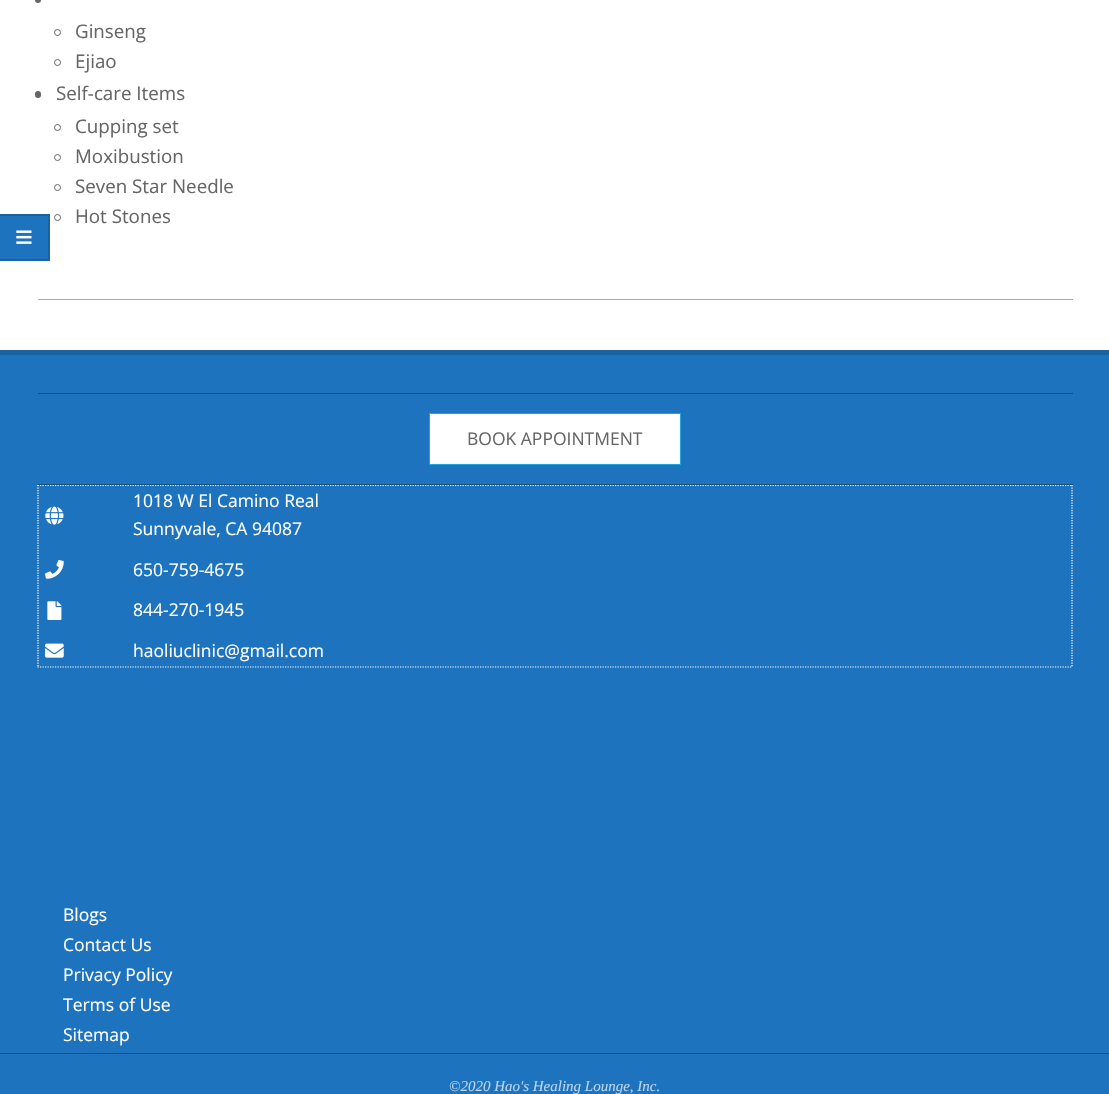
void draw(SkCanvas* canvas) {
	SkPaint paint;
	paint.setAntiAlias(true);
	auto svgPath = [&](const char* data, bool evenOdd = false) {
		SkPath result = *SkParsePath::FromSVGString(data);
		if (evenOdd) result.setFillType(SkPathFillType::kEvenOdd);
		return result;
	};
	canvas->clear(0xffffffff);
	paint.setColor(0xffababab);
	canvas->drawRect(SkRect::MakeXYWH(38, 299, 1035, 1), paint);
	paint.setColor(0xff666666);
	canvas->drawCircle(38, 0, 3, paint);
	paint.setStroke(true);
	paint.setStrokeWidth(1);
	canvas->drawCircle(57.5, 32.5, 3, paint);
	SkFont f1(fontMgr->matchFamilyStyle("Open Sans", SkFontStyle::Normal()), 18.75);
	f1.setSubpixel(true);
	paint.setStroke(false);
	canvas->drawString("Ginseng", 75, 38, f1, paint);
	paint.setStroke(true);
	canvas->drawCircle(57.5, 62.5, 3, paint);
	paint.setStroke(false);
	canvas->drawString("Ejiao", 75, 68, f1, paint);
	canvas->drawRoundRect(SkRect::MakeXYWH(35, 91, 6, 7), 3, 3, paint);
	canvas->drawString("Self-care Items", 56, 100, f1, paint);
	paint.setStroke(true);
	canvas->drawCircle(57.5, 127.5, 3, paint);
	paint.setStroke(false);
	canvas->drawString("Cupping set", 75, 133, f1, paint);
	paint.setStroke(true);
	canvas->drawCircle(57.5, 157.5, 3, paint);
	paint.setStroke(false);
	canvas->drawString("Moxibustion", 75, 163, f1, paint);
	paint.setStroke(true);
	canvas->drawCircle(57.5, 187.5, 3, paint);
	paint.setStroke(false);
	canvas->drawString("Seven Star Needle", 75, 193, f1, paint);
	paint.setStroke(true);
	canvas->drawCircle(57.5, 217.5, 3, paint);
	paint.setStroke(false);
	canvas->drawString("Hot Stones", 75, 223, f1, paint);
	paint.setColor(0xff1e73be);
	canvas->drawRect(SkRect::MakeXYWH(0, 214, 50, 47), paint);
	paint.setColor(0xff1a63a3);
	canvas->drawPath(svgPath("M0 214H50L48 216H0Z"), paint);
	paint.setColor(0x24000000);
	canvas->drawPath(svgPath("M50 214V261L48 259V216Z"), paint);
	canvas->drawPath(svgPath("M50 261H0V259H48Z"), paint);
	canvas->drawImageRect(SkImages::DeferredFromEncodedData(SkData::MakeFromFileName("img1.png")), SkRect::MakeXYWH(16, 230, 16, 14), SkSamplingOptions());
	paint.setColor(0xff1e73be);
	canvas->drawRect(SkRect::MakeXYWH(0, 355, 1109, 698), paint);
	paint.setColor(0xff1a63a3);
	canvas->drawRect(SkRect::MakeXYWH(0, 350, 1109, 5), paint);
	paint.setColor(0xff144d7f);
	canvas->drawRect(SkRect::MakeXYWH(38, 393, 1035, 1), paint);
	paint.setColor(0xffffffff);
	canvas->drawRect(SkRect::MakeXYWH(429.5, 413.5, 251, 51), paint);
	paint.setStroke(true);
	paint.setColor(0xff1da7e2);
	canvas->drawRect(SkRect::MakeXYWH(429.5, 413.5, 251, 51), paint);
	SkFont f2(fontMgr->matchFamilyStyle("Open Sans", SkFontStyle::Normal()), 17.5);
	f2.setSubpixel(true);
	paint.setStroke(false);
	paint.setColor(0xff666666);
	canvas->drawString("BOOK APPOINTMENT", 467, 445, f2, paint);
	paint.setColor(0xff144d7f);
	canvas->drawRect(SkRect::MakeXYWH(38, 484, 1035, 1), paint);
	paint.setStroke(true);
	paint.setStrokeWidth(1.2);
	paint.setColor(0xffffffff);
	paint.setPathEffect(SkDashPathEffect::Make({{1.25f, 1.25f}}, 0));
	canvas->drawPath(svgPath("M37.5 485.5H1072.5"), paint);
	paint.setPathEffect(nullptr);
	paint.setPathEffect(SkDashPathEffect::Make({{1.25f, 1.25f}}, 0));
	canvas->drawPath(svgPath("M1072 485V667.5"), paint);
	paint.setPathEffect(nullptr);
	paint.setPathEffect(SkDashPathEffect::Make({{1.25f, 1.25f}}, 0));
	canvas->drawPath(svgPath("M37.5 667H1072.5"), paint);
	paint.setPathEffect(nullptr);
	paint.setPathEffect(SkDashPathEffect::Make({{1.25f, 1.25f}}, 0));
	canvas->drawPath(svgPath("M38 485V667.5"), paint);
	paint.setPathEffect(nullptr);
	canvas->drawImageRect(SkImages::DeferredFromEncodedData(SkData::MakeFromFileName("img2.png")), SkRect::MakeXYWH(45, 506, 19, 19), SkSamplingOptions());
	paint.setStroke(false);
	canvas->drawString("1018 W El Camino Real", 133, 507, f2, paint);
	canvas->drawString("Sunnyvale, CA 94087", 133, 535, f2, paint);
	canvas->drawImageRect(SkImages::DeferredFromEncodedData(SkData::MakeFromFileName("img3.png")), SkRect::MakeXYWH(45, 560, 19, 19), SkSamplingOptions());
	canvas->drawString("650-759-4675", 133, 576, f2, paint);
	canvas->drawImageRect(SkImages::DeferredFromEncodedData(SkData::MakeFromFileName("img4.png")), SkRect::MakeXYWH(47, 601, 15, 19), SkSamplingOptions());
	canvas->drawString("844-270-1945", 133, 616, f2, paint);
	canvas->drawImageRect(SkImages::DeferredFromEncodedData(SkData::MakeFromFileName("img5.png")), SkRect::MakeXYWH(45, 643, 19, 15), SkSamplingOptions());
	canvas->drawString("haoliuclinic@gmail.com", 133, 657, f2, paint);
	canvas->drawString("Blogs", 63, 921, f2, paint);
	canvas->drawString("Contact Us", 63, 951, f2, paint);
	canvas->drawString("Privacy Policy", 63, 981, f2, paint);
	canvas->drawString("Terms of Use", 63, 1011, f2, paint);
	canvas->drawString("Sitemap", 63, 1041, f2, paint);
	paint.setColor(0xff1e73be);
	canvas->drawRect(SkRect::MakeXYWH(0, 1054, 1109, 40), paint);
	paint.setColor(0xff144d7f);
	canvas->drawRect(SkRect::MakeXYWH(0, 1053, 1109, 1), paint);
	SkFont f3(fontMgr->matchFamilyStyle("Liberation Serif", SkFontStyle::Italic()), 15);
	f3.setSubpixel(true);
	paint.setColor(0xffbcd5ec);
	canvas->drawString("©2020 Hao's Healing Lounge, Inc.", 449, 1091, f3, paint);
}
